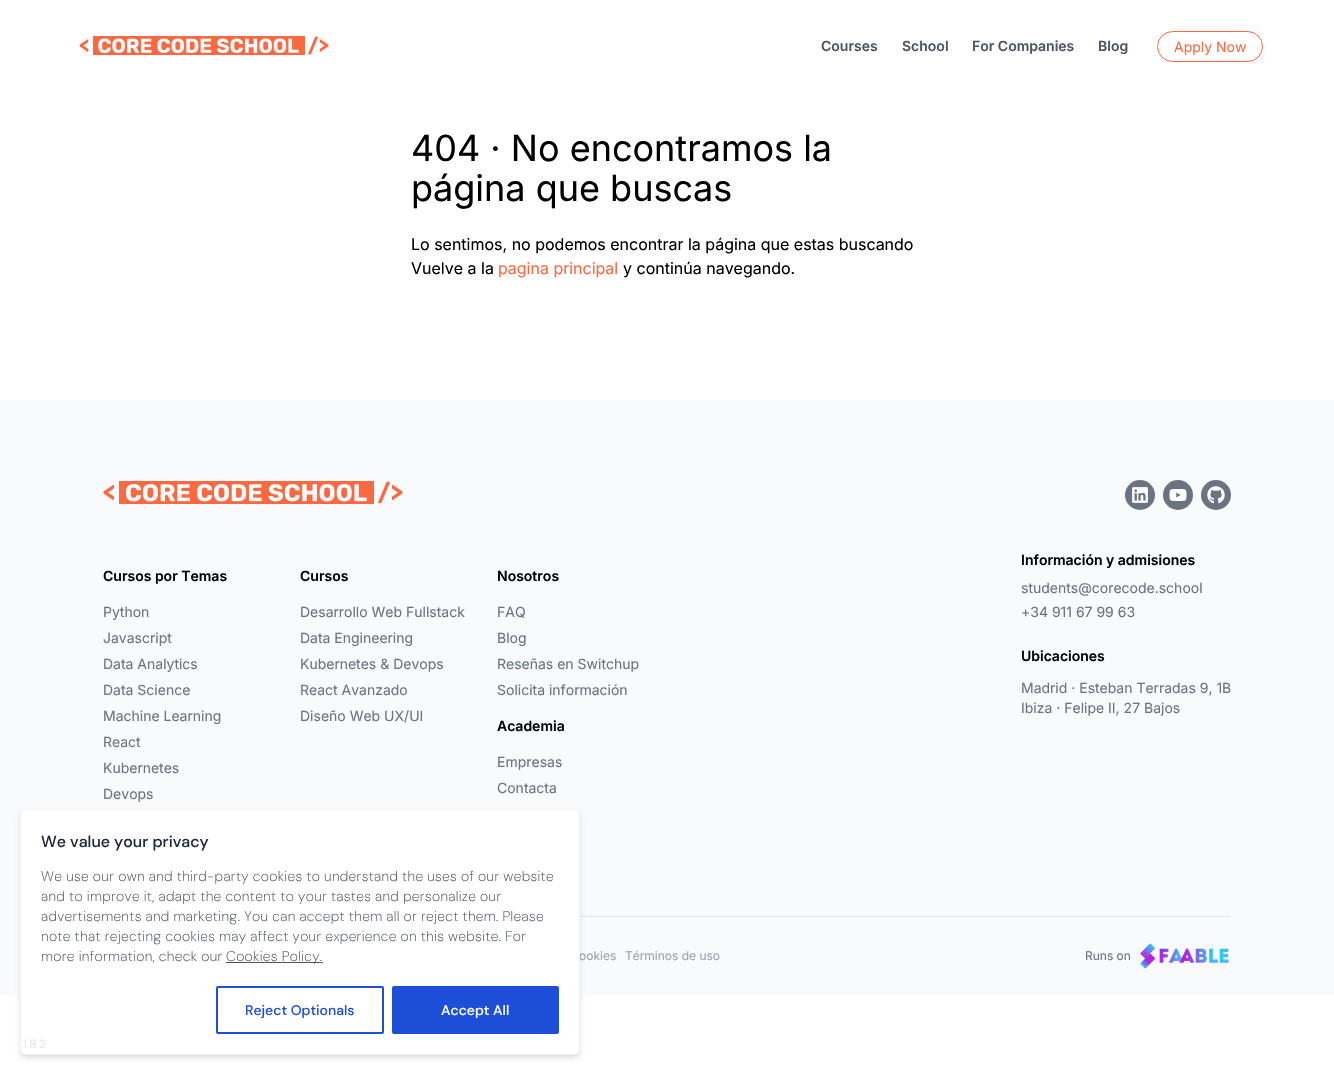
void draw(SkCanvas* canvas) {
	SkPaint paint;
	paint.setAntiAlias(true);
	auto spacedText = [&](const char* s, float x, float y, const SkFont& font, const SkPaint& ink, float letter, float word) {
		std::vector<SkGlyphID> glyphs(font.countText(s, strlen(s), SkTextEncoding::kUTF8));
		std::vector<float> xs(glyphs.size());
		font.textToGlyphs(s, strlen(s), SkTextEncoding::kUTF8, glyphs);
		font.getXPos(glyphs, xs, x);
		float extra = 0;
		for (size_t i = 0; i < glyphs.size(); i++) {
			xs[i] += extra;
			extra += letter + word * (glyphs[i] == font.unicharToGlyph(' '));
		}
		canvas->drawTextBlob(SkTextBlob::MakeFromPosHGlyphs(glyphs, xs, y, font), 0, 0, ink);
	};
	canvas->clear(0xffffffff);
	canvas->drawImageRect(SkImages::DeferredFromEncodedData(SkData::MakeFromFileName("img1.png")), SkRect::MakeXYWH(79, 36, 250, 19), SkSamplingOptions());
	SkFont f1(fontMgr->matchFamilyStyle("Inter", SkFontStyle(600, SkFontStyle::kNormal_Width, SkFontStyle::kUpright_Slant)), 14);
	f1.setSubpixel(true);
	paint.setColor(0xff4b5563);
	canvas->drawString("Courses", 821, 51, f1, paint);
	canvas->drawString("School", 902, 51, f1, paint);
	canvas->drawString("For Companies", 972, 51, f1, paint);
	canvas->drawString("Blog", 1098, 51, f1, paint);
	paint.setStroke(true);
	paint.setStrokeWidth(1);
	paint.setColor(0xfffb6942);
	canvas->drawRoundRect(SkRect::MakeXYWH(1157.5, 31.5, 105, 30), 15, 15, paint);
	SkFont f2(fontMgr->matchFamilyStyle("Inter", SkFontStyle::Normal()), 14);
	f2.setSubpixel(true);
	paint.setStroke(false);
	canvas->drawString("Apply Now", 1174, 52, f2, paint);
	SkFont f3(fontMgr->matchFamilyStyle("Inter", SkFontStyle::Normal()), 36);
	f3.setSubpixel(true);
	paint.setColor(0xff000000);
	canvas->drawString("404 · No encontramos la", 411, 161, f3, paint);
	canvas->drawString("página que buscas", 411, 201, f3, paint);
	SkFont f4(fontMgr->matchFamilyStyle("Inter", SkFontStyle::Normal()), 16);
	f4.setSubpixel(true);
	canvas->drawString("Lo sentimos, no podemos encontrar la página que estas buscando", 411, 250, f4, paint);
	canvas->drawString("Vuelve a la", 411, 274, f4, paint);
	paint.setColor(0xfffb6942);
	canvas->drawString("pagina principal", 498, 274, f4, paint);
	paint.setColor(0xff000000);
	canvas->drawString("y continúa navegando.", 623, 274, f4, paint);
	paint.setColor(0xfff9fafb);
	canvas->drawRect(SkRect::MakeXYWH(0, 400, 1334, 595), paint);
	canvas->drawImageRect(SkImages::DeferredFromEncodedData(SkData::MakeFromFileName("img2.png")), SkRect::MakeXYWH(103, 481, 300, 23), SkSamplingOptions());
	paint.setColor(0xff6b7280);
	canvas->drawCircle(1140, 495, 15, paint);
	canvas->drawImageRect(SkImages::DeferredFromEncodedData(SkData::MakeFromFileName("img3.png")), SkRect::MakeXYWH(1132, 487, 16, 16), SkSamplingOptions());
	canvas->drawCircle(1178, 495, 15, paint);
	canvas->drawImageRect(SkImages::DeferredFromEncodedData(SkData::MakeFromFileName("img4.png")), SkRect::MakeXYWH(1169, 489, 18, 12), SkSamplingOptions());
	canvas->drawCircle(1216, 495, 15, paint);
	canvas->drawImageRect(SkImages::DeferredFromEncodedData(SkData::MakeFromFileName("img5.png")), SkRect::MakeXYWH(1207, 486, 18, 18), SkSamplingOptions());
	paint.setColor(0xff000000);
	canvas->drawString("Cursos por Temas", 103, 581, f1, paint);
	paint.setColor(0xff6b7280);
	canvas->drawString("Python", 103, 617, f2, paint);
	canvas->drawString("Javascript", 103, 643, f2, paint);
	canvas->drawString("Data Analytics", 103, 669, f2, paint);
	canvas->drawString("Data Science", 103, 695, f2, paint);
	canvas->drawString("Machine Learning", 103, 721, f2, paint);
	canvas->drawString("React", 103, 747, f2, paint);
	canvas->drawString("Kubernetes", 103, 773, f2, paint);
	canvas->drawString("Devops", 103, 799, f2, paint);
	paint.setColor(0xff000000);
	canvas->drawString("Cursos", 300, 581, f1, paint);
	paint.setColor(0xff6b7280);
	canvas->drawString("Desarrollo Web Fullstack", 300, 617, f2, paint);
	canvas->drawString("Data Engineering", 300, 643, f2, paint);
	canvas->drawString("Kubernetes & Devops", 300, 669, f2, paint);
	canvas->drawString("React Avanzado", 300, 695, f2, paint);
	canvas->drawString("Diseño Web UX/UI", 300, 721, f2, paint);
	paint.setColor(0xff000000);
	canvas->drawString("Nosotros", 497, 581, f1, paint);
	paint.setColor(0xff6b7280);
	canvas->drawString("FAQ", 497, 617, f2, paint);
	canvas->drawString("Blog", 497, 643, f2, paint);
	canvas->drawString("Reseñas en Switchup", 497, 669, f2, paint);
	canvas->drawString("Solicita información", 497, 695, f2, paint);
	paint.setColor(0xff000000);
	canvas->drawString("Academia", 497, 731, f1, paint);
	paint.setColor(0xff6b7280);
	canvas->drawString("Empresas", 497, 767, f2, paint);
	canvas->drawString("Contacta", 497, 793, f2, paint);
	paint.setColor(0xff000000);
	canvas->drawString("Información y admisiones", 1021, 565, f1, paint);
	paint.setColor(0xff6b7280);
	canvas->drawString("students@corecode.school", 1021, 593, f2, paint);
	canvas->drawString("+34 911 67 99 63", 1021, 617, f2, paint);
	paint.setColor(0xff000000);
	canvas->drawString("Ubicaciones", 1021, 661, f1, paint);
	paint.setColor(0xff6b7280);
	canvas->drawString("Madrid · Esteban Terradas 9, 1B", 1021, 693, f2, paint);
	canvas->drawString("Ibiza · Felipe II, 27 Bajos", 1021, 713, f2, paint);
	paint.setColor(0xffe5e7eb);
	canvas->drawRect(SkRect::MakeXYWH(580, 916, 651, 1), paint);
	SkFont f5(fontMgr->matchFamilyStyle("Inter", SkFontStyle::Normal()), 12);
	f5.setSubpixel(true);
	paint.setColor(0xff9ca3af);
	canvas->drawString("ookies", 579, 960, f5, paint);
	canvas->drawString("Términos de uso", 625, 960, f5, paint);
	paint.setColor(0xff6b7280);
	canvas->drawString("Runs on", 1085, 960, f5, paint);
	canvas->drawImageRect(SkImages::DeferredFromEncodedData(SkData::MakeFromFileName("img6.png")), SkRect::MakeXYWH(1140, 943, 89, 26), SkSamplingOptions());
	paint.setColor(0x1a000000);
	paint.setMaskFilter(SkMaskFilter::MakeBlur(kNormal_SkBlurStyle, 2));
	canvas->drawRoundRect(SkRect::MakeXYWH(22, 813, 556, 242), 4, 4, paint);
	paint.setMaskFilter(nullptr);
	paint.setMaskFilter(SkMaskFilter::MakeBlur(kNormal_SkBlurStyle, 3));
	canvas->drawRoundRect(SkRect::MakeXYWH(21, 814, 558, 244), 5, 5, paint);
	paint.setMaskFilter(nullptr);
	paint.setColor(0xffffffff);
	canvas->drawRoundRect(SkRect::MakeXYWH(20.5, 809.5, 559, 245), 5.5, 5.5, paint);
	paint.setStroke(true);
	paint.setColor(0xfff3f4f6);
	canvas->drawRoundRect(SkRect::MakeXYWH(20.5, 809.5, 559, 245), 5.5, 5.5, paint);
	SkFont f6(fontMgr->matchFamilyStyle("DM Sans", SkFontStyle(500, SkFontStyle::kNormal_Width, SkFontStyle::kUpright_Slant)), 16);
	f6.setSubpixel(true);
	paint.setStroke(false);
	paint.setColor(0xff1f2937);
	canvas->drawString("We value your privacy", 41, 847, f6, paint);
	SkFont f7(fontMgr->matchFamilyStyle("DM Sans", SkFontStyle(200, SkFontStyle::kNormal_Width, SkFontStyle::kUpright_Slant)), 14);
	f7.setSubpixel(true);
	paint.setColor(0xff4b5563);
	spacedText("We use our own and third-party cookies to understand the uses of our website", 41, 881, f7, paint, 0.35, 0);
	spacedText("and to improve it, adapt the content to your tastes and personalize our", 41, 901, f7, paint, 0.35, 0);
	spacedText("advertisements and marketing. You can accept them all or reject them. Please", 41, 921, f7, paint, 0.35, 0);
	spacedText("note that rejecting cookies may affect your experience on this website. For", 41, 941, f7, paint, 0.35, 0);
	spacedText("more information, check our", 41, 961, f7, paint, 0.35, 0);
	canvas->drawRect(SkRect::MakeXYWH(226, 962, 97, 1), paint);
	spacedText("Cookies Policy.", 226, 961, f7, paint, 0.35, 0);
	paint.setStroke(true);
	paint.setStrokeWidth(2);
	paint.setColor(0xff1d4ed8);
	canvas->drawRoundRect(SkRect::MakeXYWH(217, 987, 166, 46), 1, 1, paint);
	SkFont f8(fontMgr->matchFamilyStyle("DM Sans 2", SkFontStyle(500, SkFontStyle::kNormal_Width, SkFontStyle::kUpright_Slant)), 14);
	f8.setSubpixel(true);
	paint.setStroke(false);
	canvas->drawString("Reject Optionals", 245, 1015, f8, paint);
	canvas->drawRoundRect(SkRect::MakeXYWH(393, 987, 165, 46), 1, 1, paint);
	paint.setStroke(true);
	canvas->drawRoundRect(SkRect::MakeXYWH(393, 987, 165, 46), 1, 1, paint);
	paint.setStroke(false);
	paint.setColor(0xffffffff);
	canvas->drawString("Accept All", 441, 1015, f8, paint);
	SkFont f9(fontMgr->matchFamilyStyle("DM Sans", SkFontStyle::Normal()), 12);
	f9.setSubpixel(true);
	paint.setColor(0xffe5e7eb);
	canvas->drawString("1.8.2", 23, 1048, f9, paint);
}
